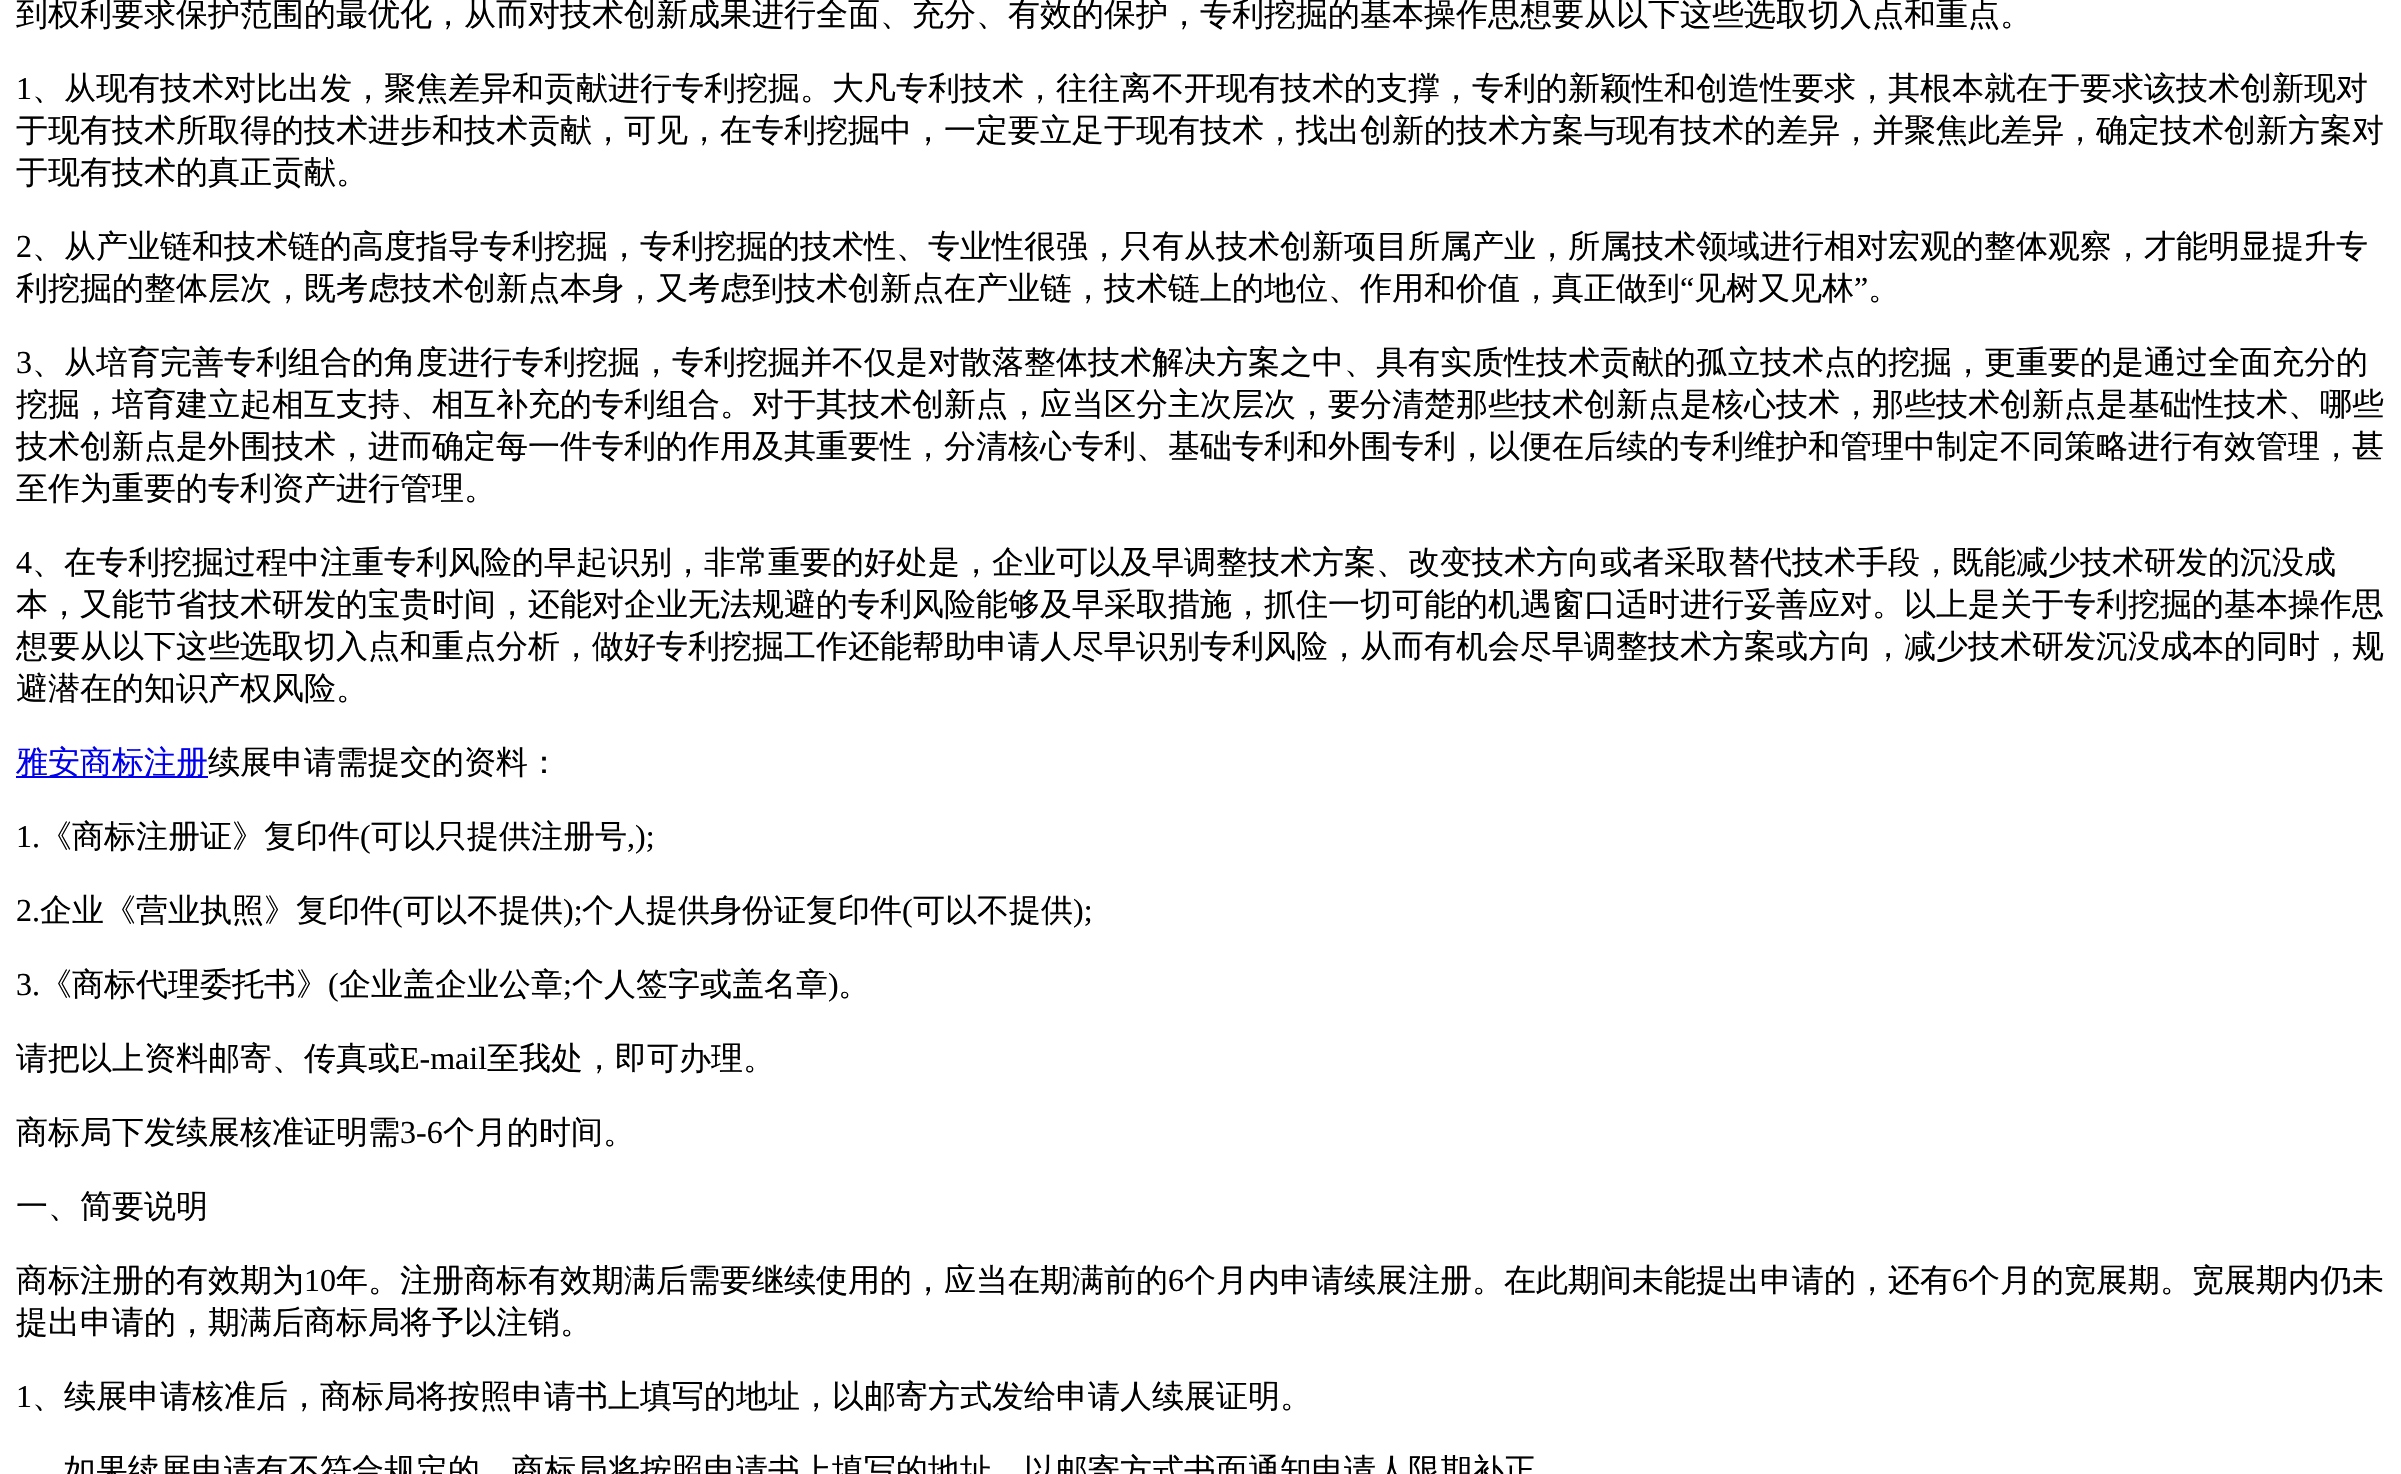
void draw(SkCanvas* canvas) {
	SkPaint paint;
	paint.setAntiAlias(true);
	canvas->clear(0xffffffff);
	SkFont f1(fontMgr->matchFamilyStyle("WenQuanYi Zen Hei", SkFontStyle(500, SkFontStyle::kNormal_Width, SkFontStyle::kUpright_Slant)), 32);
	f1.setSubpixel(true);
	paint.setColor(0xff000000);
	canvas->drawString("到权利要求保护范围的最优化，从而对技术创新成果进行全面、充分、有效的保护，专利挖掘的基本操作思想要从以下这些选取切入点和重点。", 16, 25, f1, paint);
	SkFont f2(fontMgr->matchFamilyStyle("Liberation Serif", SkFontStyle::Normal()), 32);
	f2.setSubpixel(true);
	canvas->drawString("1", 16, 99, f2, paint);
	canvas->drawString("、从现有技术对比出发，聚焦差异和贡献进行专利挖掘。大凡专利技术，往往离不开现有技术的支撑，专利的新颖性和创造性要求，其根本就在于要求该技术创新现对", 32, 99, f1, paint);
	canvas->drawString("于现有技术所取得的技术进步和技术贡献，可见，在专利挖掘中，一定要立足于现有技术，找出创新的技术方案与现有技术的差异，并聚焦此差异，确定技术创新方案对", 16, 141, f1, paint);
	canvas->drawString("于现有技术的真正贡献。", 16, 183, f1, paint);
	canvas->drawString("2", 16, 257, f2, paint);
	canvas->drawString("、从产业链和技术链的高度指导专利挖掘，专利挖掘的技术性、专业性很强，只有从技术创新项目所属产业，所属技术领域进行相对宏观的整体观察，才能明显提升专", 32, 257, f1, paint);
	canvas->drawString("利挖掘的整体层次，既考虑技术创新点本身，又考虑到技术创新点在产业链，技术链上的地位、作用和价值，真正做到", 16, 299, f1, paint);
	canvas->drawString("“", 1680, 299, f2, paint);
	canvas->drawString("见树又见林", 1694, 299, f1, paint);
	canvas->drawString("”", 1854, 299, f2, paint);
	canvas->drawString("。", 1868, 299, f1, paint);
	canvas->drawString("3", 16, 373, f2, paint);
	canvas->drawString("、从培育完善专利组合的角度进行专利挖掘，专利挖掘并不仅是对散落整体技术解决方案之中、具有实质性技术贡献的孤立技术点的挖掘，更重要的是通过全面充分的", 32, 373, f1, paint);
	canvas->drawString("挖掘，培育建立起相互支持、相互补充的专利组合。对于其技术创新点，应当区分主次层次，要分清楚那些技术创新点是核心技术，那些技术创新点是基础性技术、哪些", 16, 415, f1, paint);
	canvas->drawString("技术创新点是外围技术，进而确定每一件专利的作用及其重要性，分清核心专利、基础专利和外围专利，以便在后续的专利维护和管理中制定不同策略进行有效管理，甚", 16, 457, f1, paint);
	canvas->drawString("至作为重要的专利资产进行管理。", 16, 499, f1, paint);
	canvas->drawString("4", 16, 573, f2, paint);
	canvas->drawString("、在专利挖掘过程中注重专利风险的早起识别，非常重要的好处是，企业可以及早调整技术方案、改变技术方向或者采取替代技术手段，既能减少技术研发的沉没成", 32, 573, f1, paint);
	canvas->drawString("本，又能节省技术研发的宝贵时间，还能对企业无法规避的专利风险能够及早采取措施，抓住一切可能的机遇窗口适时进行妥善应对。以上是关于专利挖掘的基本操作思", 16, 615, f1, paint);
	canvas->drawString("想要从以下这些选取切入点和重点分析，做好专利挖掘工作还能帮助申请人尽早识别专利风险，从而有机会尽早调整技术方案或方向，减少技术研发沉没成本的同时，规", 16, 657, f1, paint);
	canvas->drawString("避潜在的知识产权风险。", 16, 699, f1, paint);
	paint.setColor(0xff0000ee);
	canvas->drawRect(SkRect::MakeXYWH(16, 776, 192, 2), paint);
	canvas->drawString("雅安商标注册", 16, 773, f1, paint);
	paint.setColor(0xff000000);
	canvas->drawString("续展申请需提交的资料：", 208, 773, f1, paint);
	canvas->drawString("1.", 16, 847, f2, paint);
	canvas->drawString("《商标注册证》复印件", 40, 847, f1, paint);
	canvas->drawString("(", 360, 847, f2, paint);
	canvas->drawString("可以只提供注册号", 371, 847, f1, paint);
	canvas->drawString(",);", 627, 847, f2, paint);
	canvas->drawString("2.", 16, 921, f2, paint);
	canvas->drawString("企业《营业执照》复印件", 40, 921, f1, paint);
	canvas->drawString("(", 392, 921, f2, paint);
	canvas->drawString("可以不提供", 403, 921, f1, paint);
	canvas->drawString(");", 563, 921, f2, paint);
	canvas->drawString("个人提供身份证复印件", 582, 921, f1, paint);
	canvas->drawString("(", 902, 921, f2, paint);
	canvas->drawString("可以不提供", 913, 921, f1, paint);
	canvas->drawString(");", 1073, 921, f2, paint);
	canvas->drawString("3.", 16, 995, f2, paint);
	canvas->drawString("《商标代理委托书》", 40, 995, f1, paint);
	canvas->drawString("(", 328, 995, f2, paint);
	canvas->drawString("企业盖企业公章", 339, 995, f1, paint);
	canvas->drawString(";", 563, 995, f2, paint);
	canvas->drawString("个人签字或盖名章", 572, 995, f1, paint);
	canvas->drawString(")", 828, 995, f2, paint);
	canvas->drawString("。", 838, 995, f1, paint);
	canvas->drawString("请把以上资料邮寄、传真或", 16, 1069, f1, paint);
	canvas->drawString("E-mail", 400, 1069, f2, paint);
	canvas->drawString("至我处，即可办理。", 487, 1069, f1, paint);
	canvas->drawString("商标局下发续展核准证明需", 16, 1143, f1, paint);
	canvas->drawString("3-6", 400, 1143, f2, paint);
	canvas->drawString("个月的时间。", 443, 1143, f1, paint);
	canvas->drawString("一、简要说明", 16, 1217, f1, paint);
	canvas->drawString("商标注册的有效期为", 16, 1291, f1, paint);
	canvas->drawString("10", 304, 1291, f2, paint);
	canvas->drawString("年。注册商标有效期满后需要继续使用的，应当在期满前的", 336, 1291, f1, paint);
	canvas->drawString("6", 1168, 1291, f2, paint);
	canvas->drawString("个月内申请续展注册。在此期间未能提出申请的，还有", 1184, 1291, f1, paint);
	canvas->drawString("6", 1952, 1291, f2, paint);
	canvas->drawString("个月的宽展期。宽展期内仍未", 1968, 1291, f1, paint);
	canvas->drawString("提出申请的，期满后商标局将予以注销。", 16, 1333, f1, paint);
	canvas->drawString("1", 16, 1407, f2, paint);
	canvas->drawString("、续展申请核准后，商标局将按照申请书上填写的地址，以邮寄方式发给申请人续展证明。", 32, 1407, f1, paint);
	canvas->drawString("如果续展申请有不符合规定的，商标局将按照申请书上填写的地址，以邮寄方式书面通知申请人限期补正", 64, 1481, f1, paint);
}
